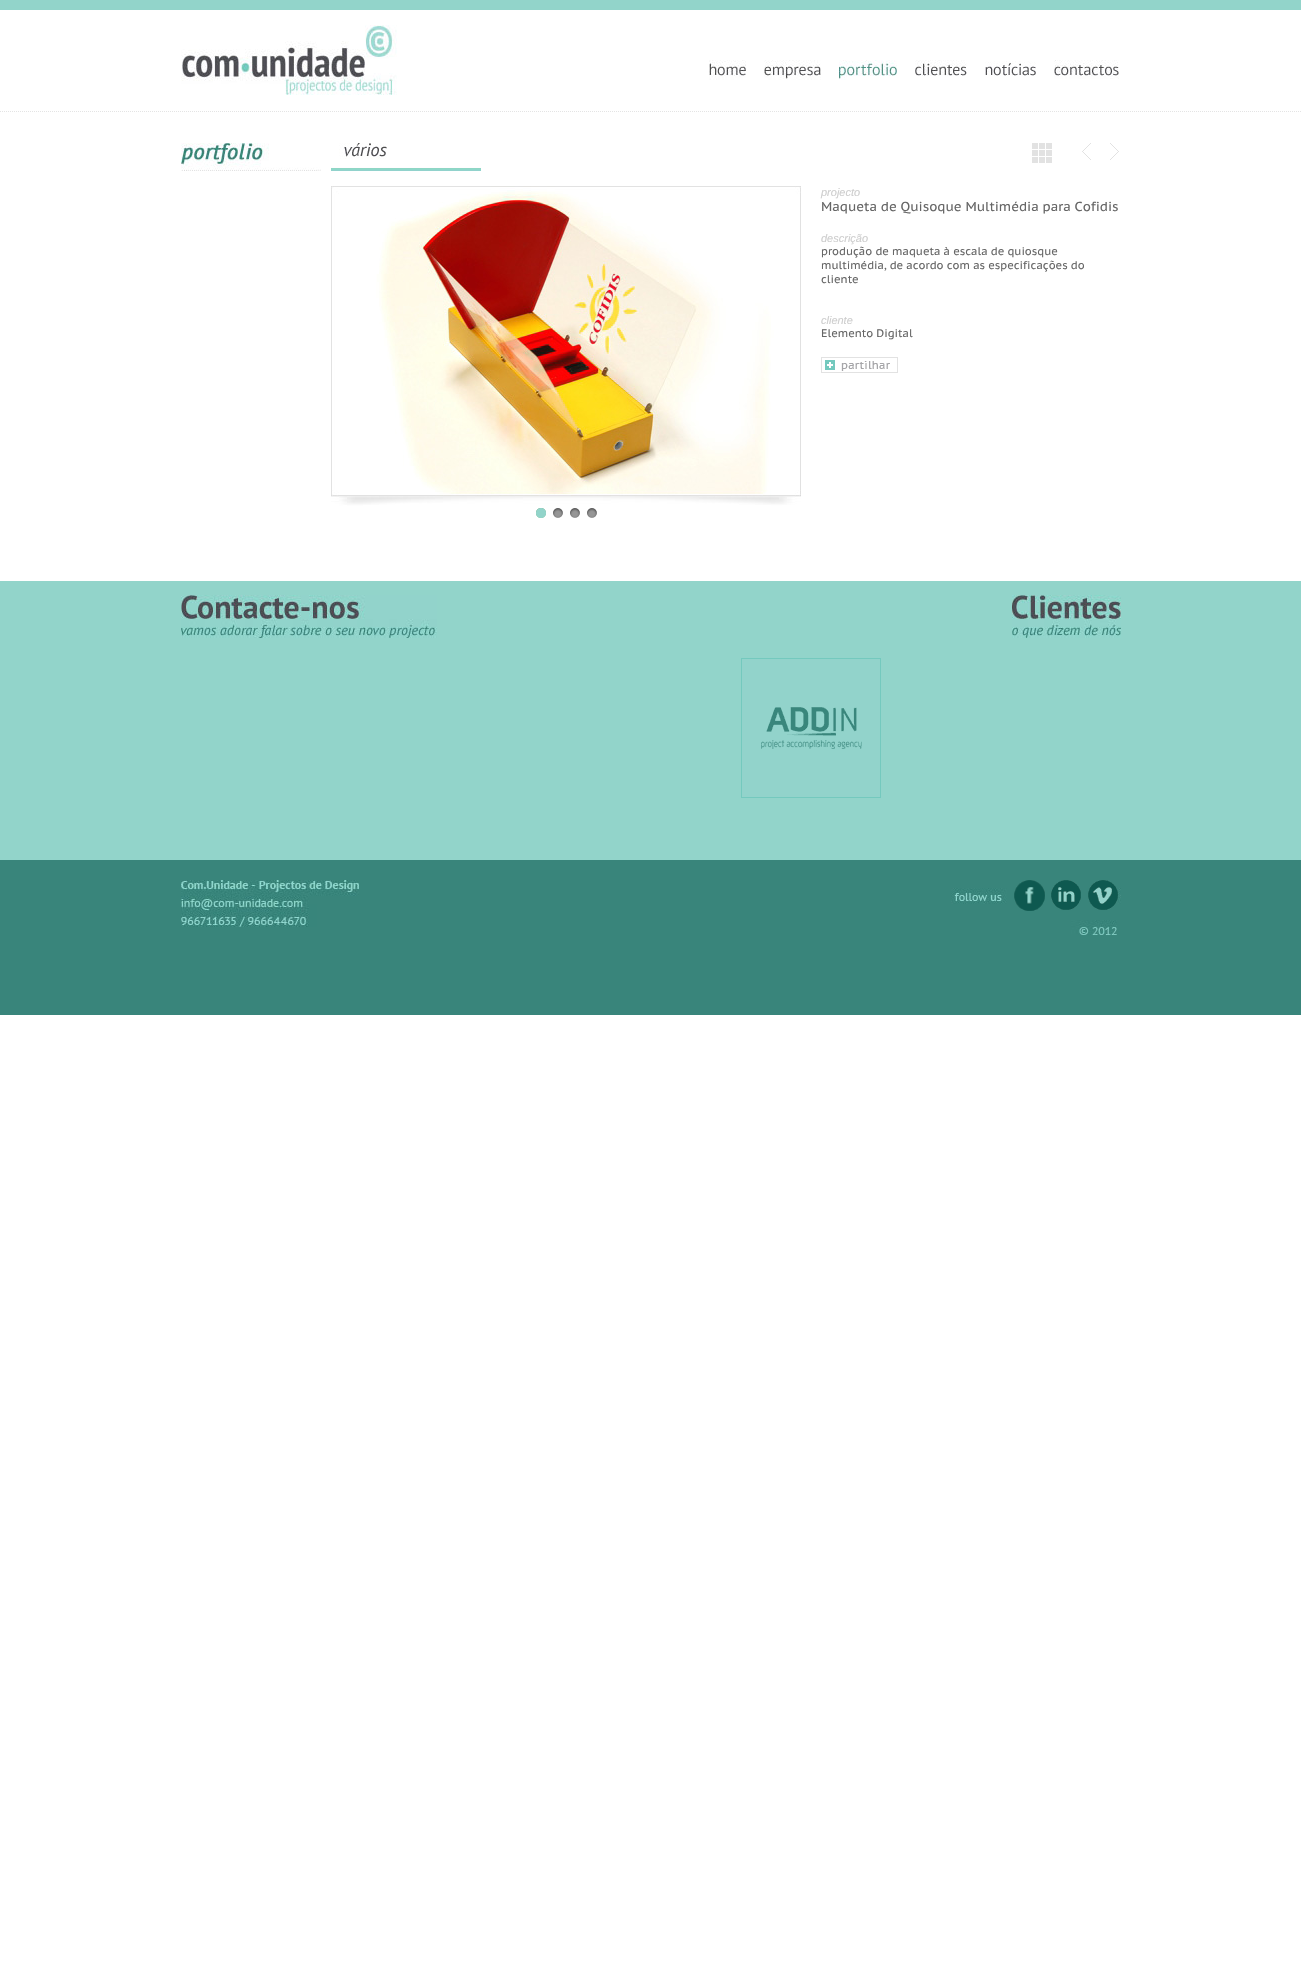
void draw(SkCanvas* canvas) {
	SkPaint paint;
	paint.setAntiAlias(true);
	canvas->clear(0xffffffff);
	paint.setColor(0xff92d4ca);
	canvas->drawRect(SkRect::MakeXYWH(0, 0, 1301, 10), paint);
	canvas->drawImageRect(SkImages::DeferredFromEncodedData(SkData::MakeFromFileName("img1.png")), SkRect::MakeXYWH(181, 25, 216, 70), SkSamplingOptions());
	canvas->drawImageRect(SkImages::DeferredFromEncodedData(SkData::MakeFromFileName("img2.png")), SkRect::MakeXYWH(709, 60, 37, 20), SkSamplingOptions());
	canvas->drawImageRect(SkImages::DeferredFromEncodedData(SkData::MakeFromFileName("img3.png")), SkRect::MakeXYWH(764, 60, 57, 20), SkSamplingOptions());
	canvas->drawImageRect(SkImages::DeferredFromEncodedData(SkData::MakeFromFileName("img4.png")), SkRect::MakeXYWH(839, 60, 58, 20), SkSamplingOptions());
	canvas->drawImageRect(SkImages::DeferredFromEncodedData(SkData::MakeFromFileName("img5.png")), SkRect::MakeXYWH(915, 60, 52, 16), SkSamplingOptions());
	canvas->drawImageRect(SkImages::DeferredFromEncodedData(SkData::MakeFromFileName("img6.png")), SkRect::MakeXYWH(985, 61, 51, 15), SkSamplingOptions());
	canvas->drawImageRect(SkImages::DeferredFromEncodedData(SkData::MakeFromFileName("img7.png")), SkRect::MakeXYWH(1054, 60, 65, 19), SkSamplingOptions());
	canvas->drawImageRect(SkImages::DeferredFromEncodedData(SkData::MakeFromFileName("img8.png")), SkRect::MakeXYWH(0, 111, 1301, 1), SkSamplingOptions());
	canvas->drawImageRect(SkImages::DeferredFromEncodedData(SkData::MakeFromFileName("img9.png")), SkRect::MakeXYWH(181, 143, 140, 28), SkSamplingOptions());
	canvas->drawImageRect(SkImages::DeferredFromEncodedData(SkData::MakeFromFileName("img10.png")), SkRect::MakeXYWH(331, 143, 150, 28), SkSamplingOptions());
	canvas->drawImageRect(SkImages::DeferredFromEncodedData(SkData::MakeFromFileName("img11.png")), SkRect::MakeXYWH(1032, 143, 20, 20), SkSamplingOptions());
	canvas->drawImageRect(SkImages::DeferredFromEncodedData(SkData::MakeFromFileName("img12.png")), SkRect::MakeXYWH(1082, 143, 9, 17), SkSamplingOptions());
	canvas->drawImageRect(SkImages::DeferredFromEncodedData(SkData::MakeFromFileName("img13.png")), SkRect::MakeXYWH(1110, 143, 9, 17), SkSamplingOptions());
	canvas->drawImageRect(SkImages::DeferredFromEncodedData(SkData::MakeFromFileName("img14.png")), SkRect::MakeXYWH(331, 186, 470, 310), SkSamplingOptions());
	canvas->drawImageRect(SkImages::DeferredFromEncodedData(SkData::MakeFromFileName("img15.png")), SkRect::MakeXYWH(536, 508, 10, 10), SkSamplingOptions());
	canvas->drawImageRect(SkImages::DeferredFromEncodedData(SkData::MakeFromFileName("img16.png")), SkRect::MakeXYWH(553, 508, 10, 10), SkSamplingOptions());
	canvas->drawImageRect(SkImages::DeferredFromEncodedData(SkData::MakeFromFileName("img16.png")), SkRect::MakeXYWH(570, 508, 10, 10), SkSamplingOptions());
	canvas->drawImageRect(SkImages::DeferredFromEncodedData(SkData::MakeFromFileName("img16.png")), SkRect::MakeXYWH(587, 508, 10, 10), SkSamplingOptions());
	canvas->drawImageRect(SkImages::DeferredFromEncodedData(SkData::MakeFromFileName("img17.png")), SkRect::MakeXYWH(331, 496, 470, 10), SkSamplingOptions());
	SkFont f1(fontMgr->matchFamilyStyle("Liberation Sans", SkFontStyle::Italic()), 11);
	f1.setSubpixel(true);
	paint.setColor(0xffcecece);
	canvas->drawString("projecto", 821, 196, f1, paint);
	SkFont f2(fontMgr->matchFamilyStyle("PT Sans Caption", SkFontStyle::Normal()), 13);
	f2.setSubpixel(true);
	paint.setColor(0xff666666);
	canvas->drawString("Maqueta de Quisoque Multimédia para Cofidis", 821, 211, f2, paint);
	paint.setColor(0xffcecece);
	canvas->drawString("descrição", 821, 242, f1, paint);
	SkFont f3(fontMgr->matchFamilyStyle("PT Sans Caption", SkFontStyle::Normal()), 11);
	f3.setSubpixel(true);
	paint.setColor(0xff666666);
	canvas->drawString("produção de maqueta à escala de quiosque", 821, 255, f3, paint);
	canvas->drawString("multimédia, de acordo com as especificações do", 821, 269, f3, paint);
	canvas->drawString("cliente", 821, 283, f3, paint);
	paint.setColor(0xffcecece);
	canvas->drawString("cliente", 821, 324, f1, paint);
	paint.setColor(0xff666666);
	canvas->drawString("Elemento Digital", 821, 337, f3, paint);
	canvas->drawImageRect(SkImages::DeferredFromEncodedData(SkData::MakeFromFileName("img18.png")), SkRect::MakeXYWH(821, 357, 77, 16), SkSamplingOptions());
	paint.setColor(0xff92d4ca);
	canvas->drawRect(SkRect::MakeXYWH(0, 581, 1301, 279), paint);
	canvas->drawImageRect(SkImages::DeferredFromEncodedData(SkData::MakeFromFileName("img19.png")), SkRect::MakeXYWH(181, 595, 256, 43), SkSamplingOptions());
	canvas->drawImageRect(SkImages::DeferredFromEncodedData(SkData::MakeFromFileName("img20.png")), SkRect::MakeXYWH(1012, 595, 109, 43), SkSamplingOptions());
	canvas->drawImageRect(SkImages::DeferredFromEncodedData(SkData::MakeFromFileName("img21.png")), SkRect::MakeXYWH(741, 658, 140, 140), SkSamplingOptions());
	paint.setColor(0xff39857b);
	canvas->drawRect(SkRect::MakeXYWH(0, 860, 1301, 155), paint);
	canvas->drawImageRect(SkImages::DeferredFromEncodedData(SkData::MakeFromFileName("img22.png")), SkRect::MakeXYWH(181, 880, 178, 47), SkSamplingOptions());
	canvas->drawImageRect(SkImages::DeferredFromEncodedData(SkData::MakeFromFileName("img23.png")), SkRect::MakeXYWH(951, 888, 170, 47), SkSamplingOptions());
	canvas->drawImageRect(SkImages::DeferredFromEncodedData(SkData::MakeFromFileName("img24.png")), SkRect::MakeXYWH(1014, 880, 31, 31), SkSamplingOptions());
	canvas->drawImageRect(SkImages::DeferredFromEncodedData(SkData::MakeFromFileName("img25.png")), SkRect::MakeXYWH(1051, 880, 30, 30), SkSamplingOptions());
	canvas->drawImageRect(SkImages::DeferredFromEncodedData(SkData::MakeFromFileName("img26.png")), SkRect::MakeXYWH(1088, 880, 30, 30), SkSamplingOptions());
}
